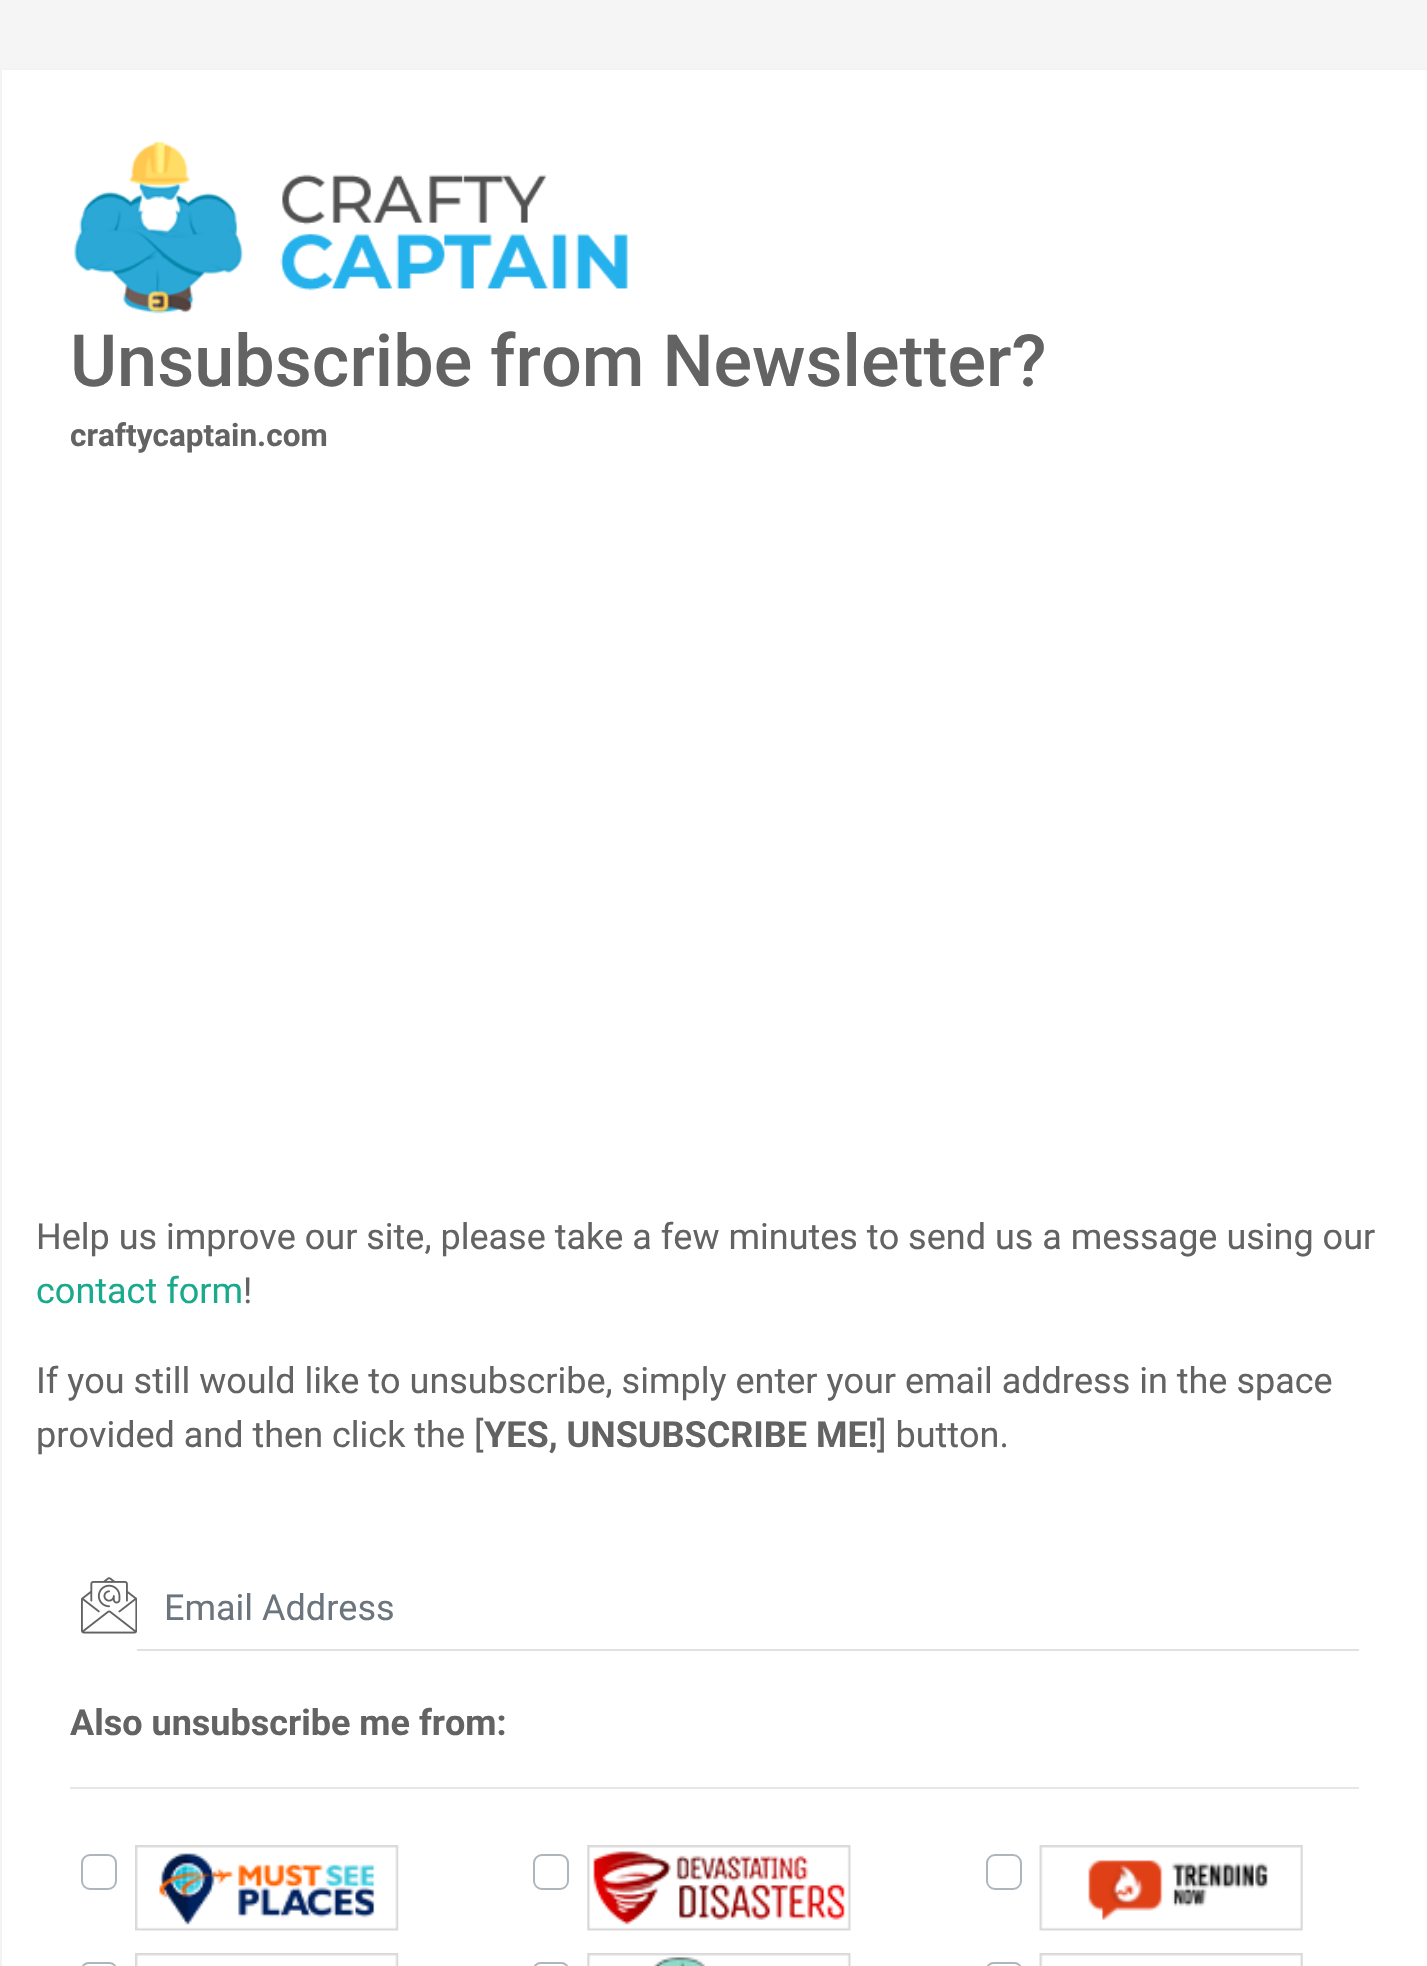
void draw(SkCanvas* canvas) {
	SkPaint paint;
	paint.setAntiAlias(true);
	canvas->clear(0xfff5f5f5);
	paint.setColor(0xffffffff);
	canvas->drawRoundRect(SkRect::MakeXYWH(1, 69, 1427, 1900), 1, 1, paint);
	paint.setStroke(true);
	paint.setStrokeWidth(2);
	paint.setColor(0xfff3f3f3);
	canvas->drawRoundRect(SkRect::MakeXYWH(1, 69, 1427, 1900), 1, 1, paint);
	canvas->drawImageRect(SkImages::DeferredFromEncodedData(SkData::MakeFromFileName("img1.png")), SkRect::MakeXYWH(74, 141, 554, 173), SkSamplingOptions());
	SkFont f1(fontMgr->matchFamilyStyle("Roboto", SkFontStyle(500, SkFontStyle::kNormal_Width, SkFontStyle::kUpright_Slant)), 72);
	f1.setSubpixel(true);
	paint.setStroke(false);
	paint.setColor(0xff636363);
	canvas->drawString("Unsubscribe from Newsletter?", 70, 386, f1, paint);
	SkFont f2(fontMgr->matchFamilyStyle("Roboto", SkFontStyle::Bold()), 31.5);
	f2.setSubpixel(true);
	canvas->drawString("craftycaptain.com", 70, 446, f2, paint);
	SkFont f3(fontMgr->matchFamilyStyle("Roboto", SkFontStyle::Normal()), 36);
	f3.setSubpixel(true);
	canvas->drawString("Help us improve our site, please take a few minutes to send us a message using our", 36, 1249, f3, paint);
	paint.setColor(0xff19aa8d);
	canvas->drawString("contact form", 36, 1303, f3, paint);
	paint.setColor(0xff636363);
	canvas->drawString("!", 243, 1303, f3, paint);
	canvas->drawString("If you still would like to unsubscribe, simply enter your email address in the space", 36, 1393, f3, paint);
	canvas->drawString("provided and then click the [", 36, 1447, f3, paint);
	SkFont f4(fontMgr->matchFamilyStyle("Roboto", SkFontStyle::Bold()), 36);
	f4.setSubpixel(true);
	canvas->drawString("YES, UNSUBSCRIBE ME!", 484, 1447, f4, paint);
	canvas->drawString("] button.", 877, 1447, f3, paint);
	canvas->drawImageRect(SkImages::DeferredFromEncodedData(SkData::MakeFromFileName("img2.png")), SkRect::MakeXYWH(81, 1577, 56, 57), SkSamplingOptions());
	paint.setColor(0xffe1e1e1);
	canvas->drawRect(SkRect::MakeXYWH(137, 1649, 1222, 2), paint);
	paint.setColor(0xff6c757d);
	canvas->drawString("Email Address", 164, 1620, f3, paint);
	paint.setColor(0xff636363);
	canvas->drawString("Also unsubscribe me from:", 70, 1735, f4, paint);
	paint.setColor(0xffe6e6e6);
	canvas->drawRect(SkRect::MakeXYWH(70, 1787, 1289, 2), paint);
	paint.setStroke(true);
	paint.setColor(0xffadb5bd);
	canvas->drawRoundRect(SkRect::MakeXYWH(82, 1855, 34, 34), 8, 8, paint);
	canvas->drawImageRect(SkImages::DeferredFromEncodedData(SkData::MakeFromFileName("img3.png")), SkRect::MakeXYWH(135, 1845, 264, 86), SkSamplingOptions());
	canvas->drawRoundRect(SkRect::MakeXYWH(534, 1855, 34, 34), 8, 8, paint);
	canvas->drawImageRect(SkImages::DeferredFromEncodedData(SkData::MakeFromFileName("img4.png")), SkRect::MakeXYWH(587, 1845, 264, 86), SkSamplingOptions());
	canvas->drawRoundRect(SkRect::MakeXYWH(987, 1855, 34, 34), 8, 8, paint);
	canvas->drawImageRect(SkImages::DeferredFromEncodedData(SkData::MakeFromFileName("img5.png")), SkRect::MakeXYWH(1039, 1845, 264, 86), SkSamplingOptions());
	canvas->drawImageRect(SkImages::DeferredFromEncodedData(SkData::MakeFromFileName("img6.png")), SkRect::MakeXYWH(135, 1953, 264, 13), SkSamplingOptions());
	canvas->drawRoundRect(SkRect::MakeXYWH(82, 1963, 34, 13), 8, 8, paint);
	canvas->drawImageRect(SkImages::DeferredFromEncodedData(SkData::MakeFromFileName("img7.png")), SkRect::MakeXYWH(587, 1953, 264, 13), SkSamplingOptions());
	canvas->drawRoundRect(SkRect::MakeXYWH(534, 1963, 34, 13), 8, 8, paint);
	canvas->drawImageRect(SkImages::DeferredFromEncodedData(SkData::MakeFromFileName("img8.png")), SkRect::MakeXYWH(1039, 1953, 264, 13), SkSamplingOptions());
	canvas->drawRoundRect(SkRect::MakeXYWH(987, 1963, 34, 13), 8, 8, paint);
}
